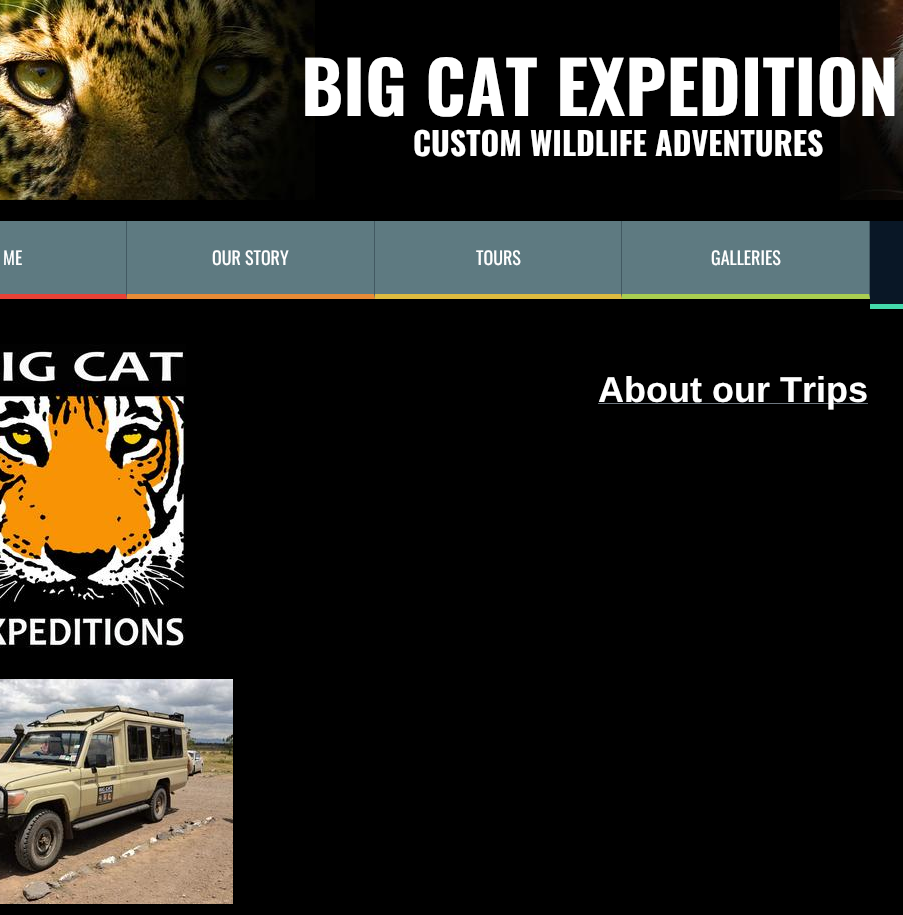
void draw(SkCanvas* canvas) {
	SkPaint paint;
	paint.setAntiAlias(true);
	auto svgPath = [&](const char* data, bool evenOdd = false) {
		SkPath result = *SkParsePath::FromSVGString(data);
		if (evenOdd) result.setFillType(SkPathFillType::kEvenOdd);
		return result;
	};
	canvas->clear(0xff000000);
	canvas->drawImageRect(SkImages::DeferredFromEncodedData(SkData::MakeFromFileName("img1.png")), SkRect::MakeXYWH(0, 0, 315, 200), SkSamplingOptions());
	canvas->drawImageRect(SkImages::DeferredFromEncodedData(SkData::MakeFromFileName("img2.png")), SkRect::MakeXYWH(840, 0, 63, 200), SkSamplingOptions());
	SkFont f1(fontMgr->matchFamilyStyle("Oswald", SkFontStyle::Bold()), 72);
	f1.setSubpixel(true);
	paint.setColor(0xffffffff);
	canvas->drawString("BIG CAT EXPEDITION", 301, 116, f1, paint);
	SkFont f2(fontMgr->matchFamilyStyle("Oswald", SkFontStyle::Bold()), 32);
	f2.setSubpixel(true);
	canvas->drawString("CUSTOM WILDLIFE ADVENTURES", 413, 156, f2, paint);
	paint.setColor(0xff5e7a81);
	canvas->drawRect(SkRect::MakeXYWH(0, 221, 870, 78), paint);
	paint.setColor(0xff425962);
	canvas->drawPath(svgPath("M127 221V299L126 294V221Z"), paint);
	paint.setColor(0xffe84237);
	canvas->drawPath(svgPath("M127 299H-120V294H126Z"), paint);
	SkFont f3(fontMgr->matchFamilyStyle("Oswald", SkFontStyle::Normal()), 18);
	f3.setSubpixel(true);
	paint.setColor(0xffffffff);
	canvas->drawString("ME", 3, 265, f3, paint);
	paint.setColor(0xff425962);
	canvas->drawPath(svgPath("M375 221V299L374 294V221Z"), paint);
	paint.setColor(0xffe88b37);
	canvas->drawPath(svgPath("M375 299H127V294H374Z"), paint);
	paint.setColor(0xffffffff);
	canvas->drawString("OUR STORY", 212, 265, f3, paint);
	paint.setColor(0xff425962);
	canvas->drawPath(svgPath("M622 221V299L621 294V221Z"), paint);
	paint.setColor(0xffdfbb3f);
	canvas->drawPath(svgPath("M622 299H375V294H621Z"), paint);
	paint.setColor(0xffffffff);
	canvas->drawString("TOURS", 476, 265, f3, paint);
	paint.setColor(0xff425962);
	canvas->drawPath(svgPath("M870 221V299L869 294V221Z"), paint);
	paint.setColor(0xffaace50);
	canvas->drawPath(svgPath("M870 299H622V294H869Z"), paint);
	paint.setColor(0xffffffff);
	canvas->drawString("GALLERIES", 711, 265, f3, paint);
	paint.setColor(0xff091726);
	canvas->drawRect(SkRect::MakeXYWH(870, 221, 33, 83), paint);
	paint.setColor(0xff44dbad);
	canvas->drawPath(svgPath("M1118 309H870V304H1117Z"), paint);
	canvas->drawImageRect(SkImages::DeferredFromEncodedData(SkData::MakeFromFileName("img3.png")), SkRect::MakeXYWH(0, 344, 186, 304), SkSamplingOptions());
	paint.setColor(0xff6d7780);
	canvas->drawRect(SkRect::MakeXYWH(598, 403, 270, 1), paint);
	SkFont f4(fontMgr->matchFamilyStyle("Liberation Sans", SkFontStyle::Bold()), 36);
	f4.setSubpixel(true);
	paint.setColor(0xffffffff);
	canvas->drawString("About our Trips", 598, 402, f4, paint);
	canvas->drawImageRect(SkImages::DeferredFromEncodedData(SkData::MakeFromFileName("img4.png")), SkRect::MakeXYWH(0, 679, 233, 225), SkSamplingOptions());
}
